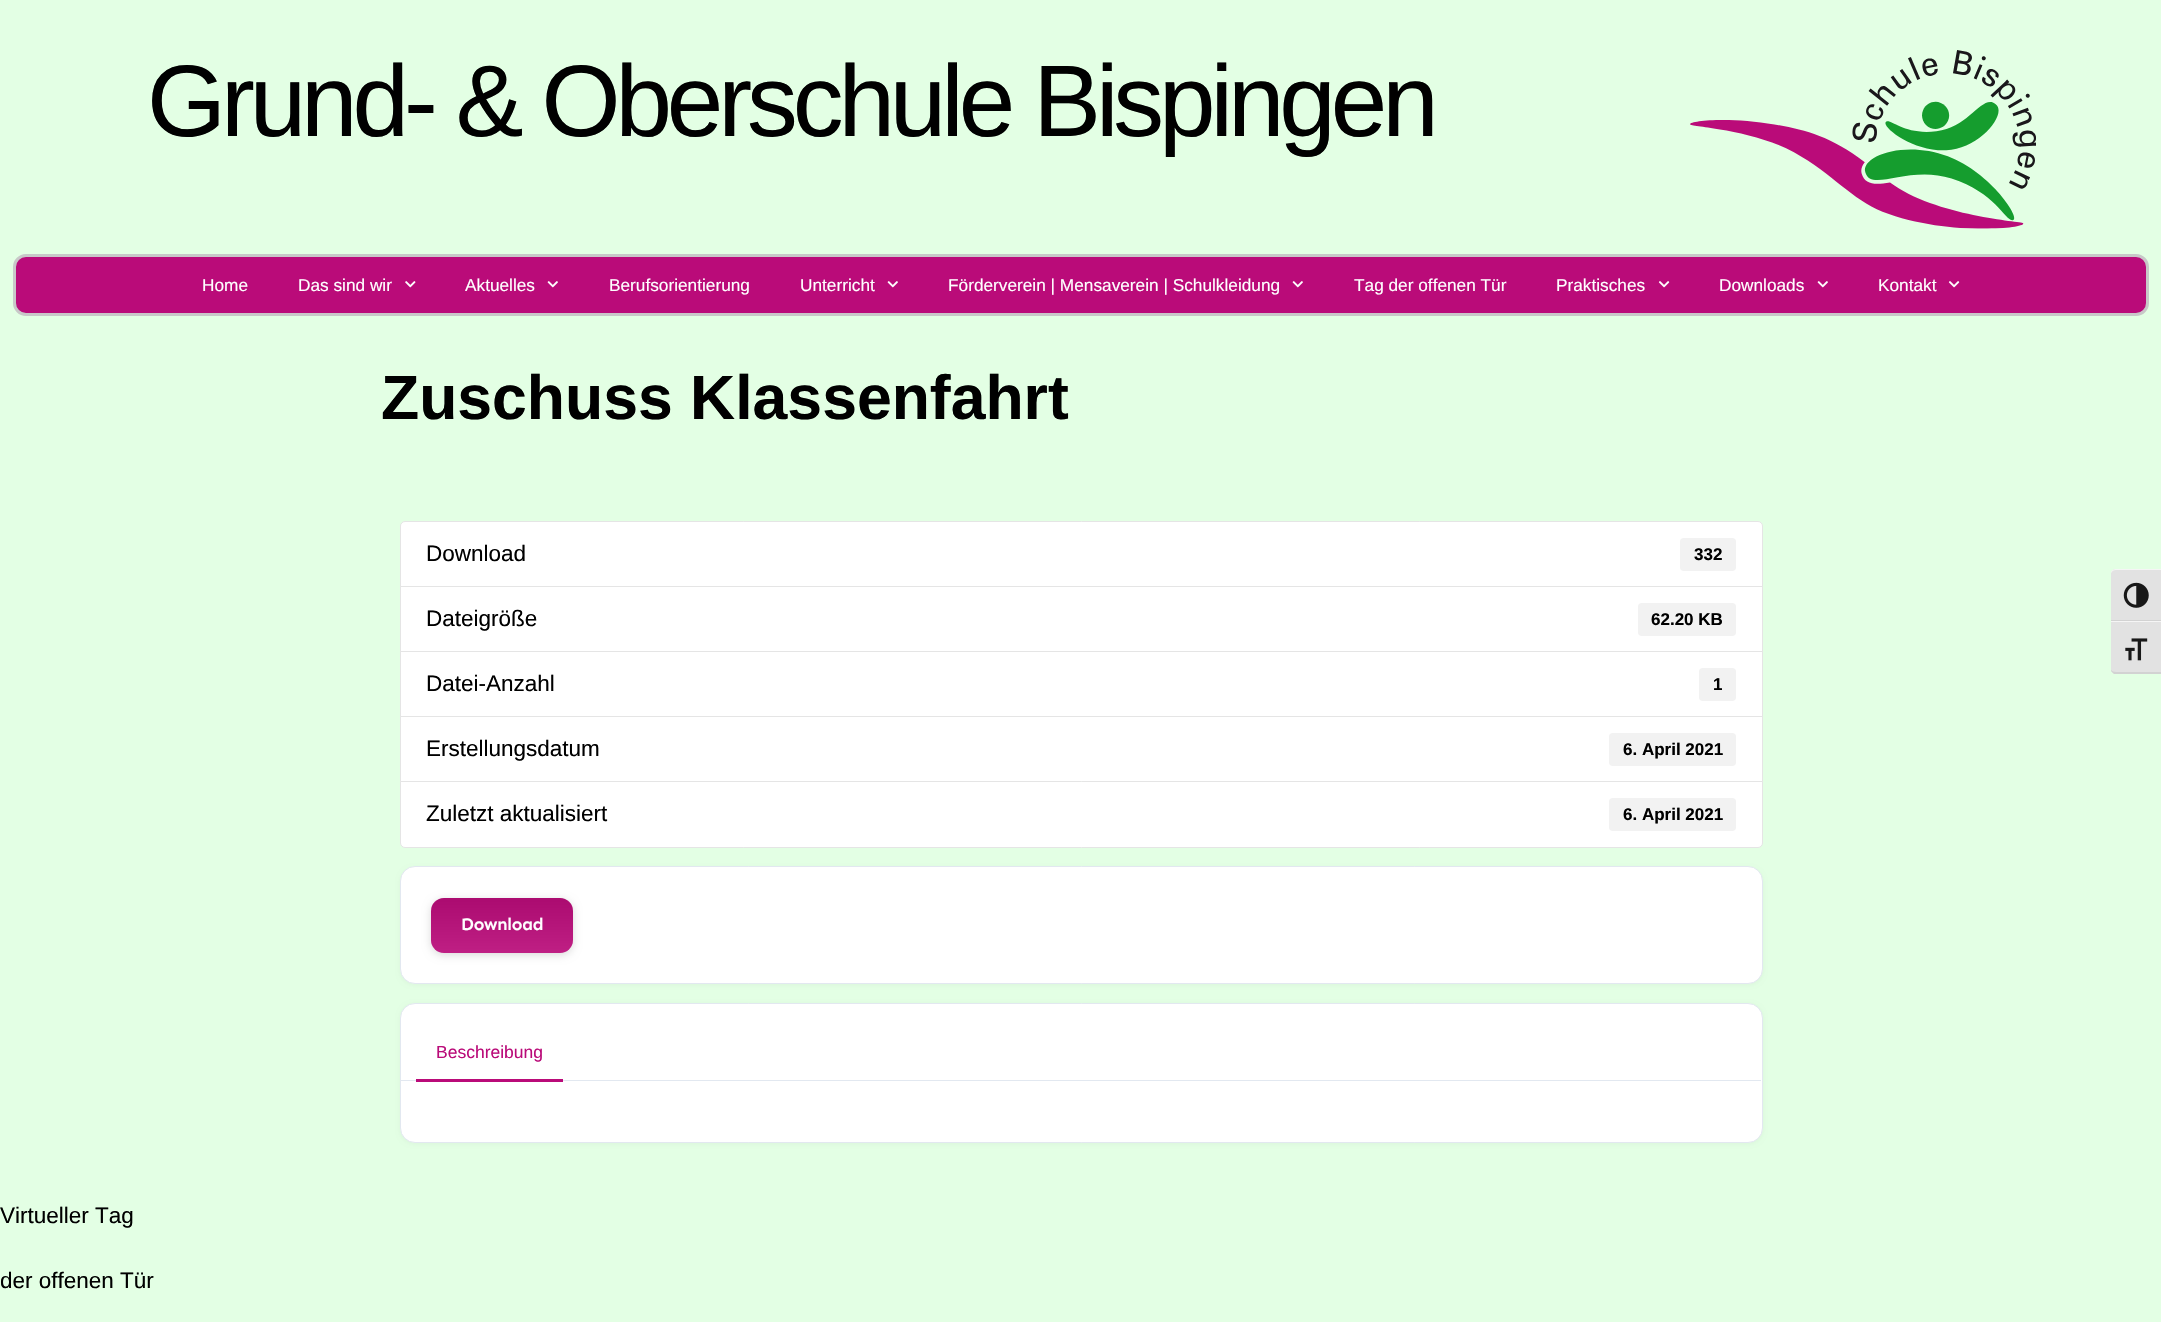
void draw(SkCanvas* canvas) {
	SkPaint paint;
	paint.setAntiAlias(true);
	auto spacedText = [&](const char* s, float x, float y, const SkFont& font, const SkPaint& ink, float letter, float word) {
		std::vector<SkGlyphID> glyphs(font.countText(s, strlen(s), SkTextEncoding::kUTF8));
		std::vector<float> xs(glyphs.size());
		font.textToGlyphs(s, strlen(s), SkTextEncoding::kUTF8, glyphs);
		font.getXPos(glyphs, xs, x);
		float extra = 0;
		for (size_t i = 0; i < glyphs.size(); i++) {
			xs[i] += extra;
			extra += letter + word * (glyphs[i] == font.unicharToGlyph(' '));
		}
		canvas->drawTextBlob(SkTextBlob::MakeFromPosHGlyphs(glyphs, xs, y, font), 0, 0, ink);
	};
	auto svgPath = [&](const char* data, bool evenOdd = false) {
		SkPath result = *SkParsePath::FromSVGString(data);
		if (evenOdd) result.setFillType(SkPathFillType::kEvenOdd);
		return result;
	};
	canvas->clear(0xffe3ffe4);
	SkFont f1(fontMgr->matchFamilyStyle("Liberation Sans", SkFontStyle::Normal()), 101.6);
	f1.setSubpixel(true);
	paint.setColor(0xff000000);
	spacedText("Grund- & Oberschule Bispingen", 147, 136, f1, paint, -5.1, 0);
	canvas->drawImageRect(SkImages::DeferredFromEncodedData(SkData::MakeFromFileName("img1.png")), SkRect::MakeXYWH(1690, 50, 346, 179), SkSamplingOptions());
	paint.setColor(0xffba0b79);
	canvas->drawRoundRect(SkRect::MakeXYWH(14.5, 255.5, 2133, 59), 11.5, 11.5, paint);
	paint.setStroke(true);
	paint.setStrokeWidth(3);
	paint.setColor(0xffc8c8c8);
	canvas->drawRoundRect(SkRect::MakeXYWH(14.5, 255.5, 2133, 59), 11.5, 11.5, paint);
	SkFont f2(fontMgr->matchFamilyStyle("Liberation Sans", SkFontStyle::Normal()), 17.25);
	f2.setSubpixel(true);
	paint.setStroke(false);
	paint.setColor(0xffffffff);
	canvas->drawString("Home", 202, 291, f2, paint);
	canvas->drawString("Das sind wir", 298, 291, f2, paint);
	canvas->drawImageRect(SkImages::DeferredFromEncodedData(SkData::MakeFromFileName("img2.png")), SkRect::MakeXYWH(405, 281, 11, 7), SkSamplingOptions());
	canvas->drawString("Aktuelles", 465, 291, f2, paint);
	canvas->drawImageRect(SkImages::DeferredFromEncodedData(SkData::MakeFromFileName("img3.png")), SkRect::MakeXYWH(547, 281, 11, 7), SkSamplingOptions());
	canvas->drawString("Berufsorientierung", 609, 291, f2, paint);
	canvas->drawString("Unterricht", 800, 291, f2, paint);
	canvas->drawImageRect(SkImages::DeferredFromEncodedData(SkData::MakeFromFileName("img3.png")), SkRect::MakeXYWH(887, 281, 11, 7), SkSamplingOptions());
	canvas->drawString("Förderverein | Mensaverein | Schulkleidung", 948, 291, f2, paint);
	canvas->drawImageRect(SkImages::DeferredFromEncodedData(SkData::MakeFromFileName("img3.png")), SkRect::MakeXYWH(1292, 281, 11, 7), SkSamplingOptions());
	canvas->drawString("Tag der offenen Tür", 1354, 291, f2, paint);
	canvas->drawString("Praktisches", 1556, 291, f2, paint);
	canvas->drawImageRect(SkImages::DeferredFromEncodedData(SkData::MakeFromFileName("img4.png")), SkRect::MakeXYWH(1658, 281, 12, 7), SkSamplingOptions());
	canvas->drawString("Downloads", 1719, 291, f2, paint);
	canvas->drawImageRect(SkImages::DeferredFromEncodedData(SkData::MakeFromFileName("img3.png")), SkRect::MakeXYWH(1817, 281, 11, 7), SkSamplingOptions());
	canvas->drawString("Kontakt", 1878, 291, f2, paint);
	canvas->drawImageRect(SkImages::DeferredFromEncodedData(SkData::MakeFromFileName("img4.png")), SkRect::MakeXYWH(1948, 281, 12, 7), SkSamplingOptions());
	SkFont f3(fontMgr->matchFamilyStyle("Liberation Sans", SkFontStyle::Bold()), 62.5);
	f3.setSubpixel(true);
	paint.setColor(0xff000000);
	canvas->drawString("Zuschuss Klassenfahrt", 381, 419, f3, paint);
	paint.setColor(0xffffffff);
	canvas->drawPath(svgPath("M405 521.5H1758C1760.5 521.5 1762.5 523.5 1762.5 526V587.5H400.5V526C400.5 523.5 402.5 521.5 405 521.5Z"), paint);
	paint.setStroke(true);
	paint.setStrokeWidth(1);
	paint.setColor(0xffe5e5e5);
	canvas->drawPath(svgPath("M405 521.5H1758C1760.5 521.5 1762.5 523.5 1762.5 526V587.5H400.5V526C400.5 523.5 402.5 521.5 405 521.5Z"), paint);
	SkFont f4(fontMgr->matchFamilyStyle("Liberation Sans", SkFontStyle::Normal()), 22.5);
	f4.setSubpixel(true);
	paint.setStroke(false);
	paint.setColor(0xff000000);
	canvas->drawString("Download", 426, 561, f4, paint);
	paint.setColor(0xfff2f2f2);
	canvas->drawRoundRect(SkRect::MakeXYWH(1680, 538, 56, 33), 4, 4, paint);
	SkFont f5(fontMgr->matchFamilyStyle("Liberation Sans", SkFontStyle::Bold()), 17);
	f5.setSubpixel(true);
	paint.setColor(0xff000000);
	canvas->drawString("332", 1694, 560, f5, paint);
	paint.setColor(0xffffffff);
	canvas->drawRect(SkRect::MakeXYWH(401, 587, 1361, 64), paint);
	paint.setStroke(true);
	paint.setColor(0xffe5e5e5);
	canvas->drawRect(SkRect::MakeXYWH(400.5, 586.5, 1362, 66), paint);
	paint.setStroke(false);
	paint.setColor(0xff000000);
	canvas->drawString("Dateigröße", 426, 626, f4, paint);
	paint.setColor(0xfff2f2f2);
	canvas->drawRoundRect(SkRect::MakeXYWH(1638, 603, 98, 33), 4, 4, paint);
	paint.setColor(0xff000000);
	canvas->drawString("62.20 KB", 1651, 625, f5, paint);
	paint.setColor(0xffffffff);
	canvas->drawRect(SkRect::MakeXYWH(401, 652, 1361, 64), paint);
	paint.setStroke(true);
	paint.setColor(0xffe5e5e5);
	canvas->drawRect(SkRect::MakeXYWH(400.5, 651.5, 1362, 66), paint);
	paint.setStroke(false);
	paint.setColor(0xff000000);
	canvas->drawString("Datei-Anzahl", 426, 691, f4, paint);
	paint.setColor(0xfff2f2f2);
	canvas->drawRoundRect(SkRect::MakeXYWH(1699, 668, 37, 33), 4, 4, paint);
	paint.setColor(0xff000000);
	canvas->drawString("1", 1713, 690, f5, paint);
	paint.setColor(0xffffffff);
	canvas->drawRect(SkRect::MakeXYWH(401, 717, 1361, 64), paint);
	paint.setStroke(true);
	paint.setColor(0xffe5e5e5);
	canvas->drawRect(SkRect::MakeXYWH(400.5, 716.5, 1362, 66), paint);
	paint.setStroke(false);
	paint.setColor(0xff000000);
	canvas->drawString("Erstellungsdatum", 426, 756, f4, paint);
	paint.setColor(0xfff2f2f2);
	canvas->drawRoundRect(SkRect::MakeXYWH(1609, 733, 127, 33), 4, 4, paint);
	paint.setColor(0xff000000);
	canvas->drawString("6. April 2021", 1623, 755, f5, paint);
	paint.setColor(0xffffffff);
	canvas->drawPath(svgPath("M400.5 781.5H1762.5V843C1762.5 845.5 1760.5 847.5 1758 847.5H405C402.5 847.5 400.5 845.5 400.5 843Z"), paint);
	paint.setStroke(true);
	paint.setColor(0xffe5e5e5);
	canvas->drawPath(svgPath("M400.5 781.5H1762.5V843C1762.5 845.5 1760.5 847.5 1758 847.5H405C402.5 847.5 400.5 845.5 400.5 843Z"), paint);
	paint.setStroke(false);
	paint.setColor(0xff000000);
	canvas->drawString("Zuletzt aktualisiert", 426, 821, f4, paint);
	paint.setColor(0xfff2f2f2);
	canvas->drawRoundRect(SkRect::MakeXYWH(1609, 798, 127, 33), 4, 4, paint);
	paint.setColor(0xff000000);
	canvas->drawString("6. April 2021", 1623, 820, f5, paint);
	paint.setColor(0x0a000000);
	paint.setMaskFilter(SkMaskFilter::MakeBlur(kNormal_SkBlurStyle, 2));
	canvas->drawRoundRect(SkRect::MakeXYWH(400, 868, 1363, 117), 15, 15, paint);
	paint.setMaskFilter(nullptr);
	paint.setColor(0xffffffff);
	canvas->drawRoundRect(SkRect::MakeXYWH(400.5, 866.5, 1362, 117), 14.5, 14.5, paint);
	paint.setStroke(true);
	paint.setColor(0xffe2e8f0);
	canvas->drawRoundRect(SkRect::MakeXYWH(400.5, 866.5, 1362, 117), 14.5, 14.5, paint);
	paint.setStroke(false);
	paint.setColor(0x26000000);
	paint.setMaskFilter(SkMaskFilter::MakeBlur(kNormal_SkBlurStyle, 4));
	canvas->drawRoundRect(SkRect::MakeXYWH(431, 900, 142, 55), 13, 13, paint);
	paint.setMaskFilter(nullptr);
	paint.setColor(0xffba0b79);
	canvas->drawRoundRect(SkRect::MakeXYWH(431, 898, 142, 55), 13, 13, paint);
	{
		const SkColor colors[] = {0x14000000, 0x14ffffff};
		const float stops[] = {0, 1};
		const SkPoint ends[] = {{502, 898}, {502, 953}};
		paint.setShader(SkGradientShader::MakeLinear(ends, colors, stops, 2, SkTileMode::kClamp));
		paint.setAlpha(255);
	}
	canvas->drawRoundRect(SkRect::MakeXYWH(431, 898, 142, 55), 13, 13, paint);
	SkFont f6(fontMgr->matchFamilyStyle("Sen", SkFontStyle(600, SkFontStyle::kNormal_Width, SkFontStyle::kUpright_Slant)), 17.5);
	f6.setSubpixel(true);
	paint.setShader(nullptr);
	paint.setColor(0xffffffff);
	spacedText("Download", 461, 930, f6, paint, -0.25, 0);
	paint.setColor(0x0a000000);
	paint.setMaskFilter(SkMaskFilter::MakeBlur(kNormal_SkBlurStyle, 2));
	canvas->drawRoundRect(SkRect::MakeXYWH(400, 1004, 1363, 140), 15, 15, paint);
	paint.setMaskFilter(nullptr);
	paint.setColor(0xffffffff);
	canvas->drawRoundRect(SkRect::MakeXYWH(400.5, 1003.5, 1362, 139), 14.5, 14.5, paint);
	paint.setStroke(true);
	paint.setColor(0xffe2e8f0);
	canvas->drawRoundRect(SkRect::MakeXYWH(400.5, 1003.5, 1362, 139), 14.5, 14.5, paint);
	paint.setStroke(false);
	canvas->drawRect(SkRect::MakeXYWH(401, 1080, 1360, 1), paint);
	SkFont f7(fontMgr->matchFamilyStyle("Liberation Sans", SkFontStyle::Normal()), 17.5);
	f7.setSubpixel(true);
	paint.setColor(0xffba0b79);
	canvas->drawString("Beschreibung", 436, 1058, f7, paint);
	canvas->drawRect(SkRect::MakeXYWH(416, 1079, 147, 3), paint);
	paint.setColor(0xff000000);
	canvas->drawString("Virtueller Tag", 0, 1223, f4, paint);
	canvas->drawString("der offenen Tür", 0, 1288, f4, paint);
	paint.setColor(0xffe2e2e2);
	canvas->drawPath(svgPath("M2116 569H2161V621H2111V574C2111 571 2113 569 2116 569Z"), paint);
	paint.setColor(0xfff5f5f5);
	canvas->drawPath(svgPath("M2116 569H2161V570H2116C2114 570 2112 571 2111 573C2111 570 2114 569 2116 569Z"), paint);
	paint.setColor(0xffd2d2d2);
	canvas->drawRect(SkRect::MakeXYWH(2111, 620, 50, 1), paint);
	canvas->drawImageRect(SkImages::DeferredFromEncodedData(SkData::MakeFromFileName("img5.png")), SkRect::MakeXYWH(2123, 582, 26, 26), SkSamplingOptions());
	paint.setColor(0xffe2e2e2);
	canvas->drawPath(svgPath("M2111 621H2161V674H2116C2113 674 2111 672 2111 669Z"), paint);
	paint.setColor(0xfff5f5f5);
	canvas->drawRect(SkRect::MakeXYWH(2111, 621, 50, 1), paint);
	paint.setColor(0xffd2d2d2);
	canvas->drawPath(svgPath("M2161 674V672H2116C2114 672 2112 671 2111 670V671C2112 672 2113 673 2114 674Z"), paint);
	canvas->drawImageRect(SkImages::DeferredFromEncodedData(SkData::MakeFromFileName("img6.png")), SkRect::MakeXYWH(2125, 638, 23, 23), SkSamplingOptions());
}
